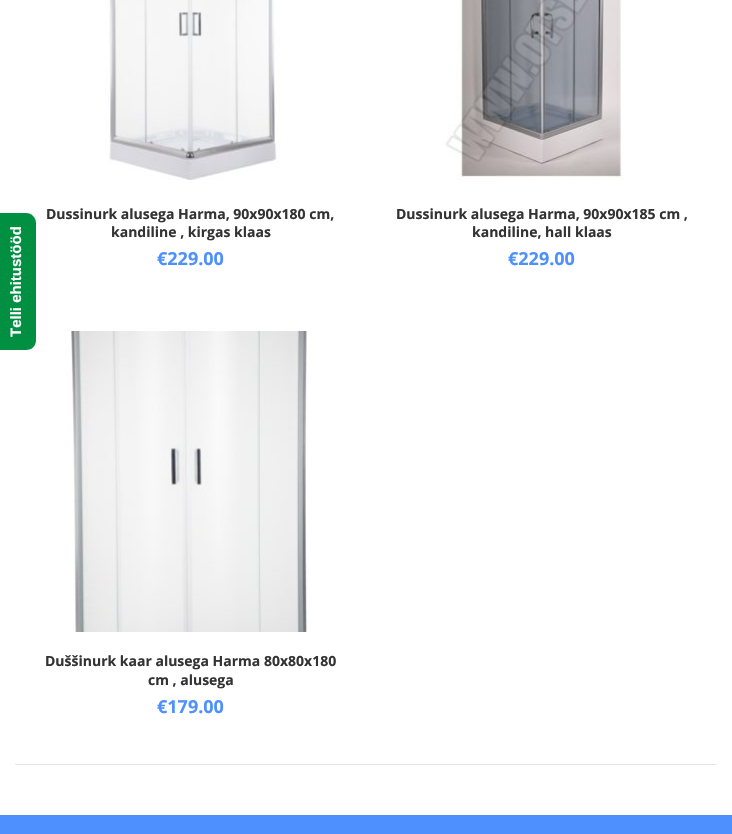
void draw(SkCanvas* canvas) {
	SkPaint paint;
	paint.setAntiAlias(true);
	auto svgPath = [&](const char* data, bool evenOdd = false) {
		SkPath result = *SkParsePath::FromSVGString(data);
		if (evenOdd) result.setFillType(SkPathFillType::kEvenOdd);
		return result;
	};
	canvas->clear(0xffffffff);
	paint.setColor(0xff018f41);
	canvas->drawPath(svgPath("M-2 350V213H26C32 213 36 218 36 223V340C36 346 32 350 26 350Z"), paint);
	SkFont f1(fontMgr->matchFamilyStyle("Liberation Sans", SkFontStyle::Bold()), 15);
	f1.setSubpixel(true);
	paint.setColor(0xffffffff);
	canvas->save();
	canvas->rotate(-90, 21, 337);
	canvas->drawString("Telli ehitustööd", 21, 337, f1, paint);
	canvas->restore();
	canvas->drawImageRect(SkImages::DeferredFromEncodedData(SkData::MakeFromFileName("img1.png")), SkRect::MakeXYWH(105, 0, 176, 180), SkSamplingOptions());
	SkFont f2(fontMgr->matchFamilyStyle("Open Sans", SkFontStyle::Bold()), 14);
	f2.setSubpixel(true);
	paint.setColor(0xff333333);
	canvas->drawString("Dussinurk alusega Harma, 90x90x180 cm,", 46, 219, f2, paint);
	canvas->drawString("kandiline , kirgas klaas", 111, 237, f2, paint);
	SkFont f3(fontMgr->matchFamilyStyle("Open Sans", SkFontStyle::Bold()), 18);
	f3.setSubpixel(true);
	paint.setColor(0xff4d90fe);
	canvas->drawString("€229.00", 157, 265, f3, paint);
	canvas->drawImageRect(SkImages::DeferredFromEncodedData(SkData::MakeFromFileName("img2.png")), SkRect::MakeXYWH(445, 0, 179, 181), SkSamplingOptions());
	paint.setColor(0xff333333);
	canvas->drawString("Dussinurk alusega Harma, 90x90x185 cm ,", 396, 219, f2, paint);
	canvas->drawString("kandiline, hall klaas", 472, 237, f2, paint);
	paint.setColor(0xff4d90fe);
	canvas->drawString("€229.00", 508, 265, f3, paint);
	canvas->drawImageRect(SkImages::DeferredFromEncodedData(SkData::MakeFromFileName("img3.png")), SkRect::MakeXYWH(71, 331, 237, 301), SkSamplingOptions());
	paint.setColor(0xff333333);
	canvas->drawString("Duššinurk kaar alusega Harma 80x80x180", 45, 666, f2, paint);
	canvas->drawString("cm , alusega", 148, 685, f2, paint);
	paint.setColor(0xff4d90fe);
	canvas->drawString("€179.00", 157, 713, f3, paint);
	paint.setColor(0xffe5e5e5);
	canvas->drawRect(SkRect::MakeXYWH(15, 764, 702, 1), paint);
	paint.setColor(0xff4d90fe);
	canvas->drawRect(SkRect::MakeXYWH(0, 815, 732, 19), paint);
}
